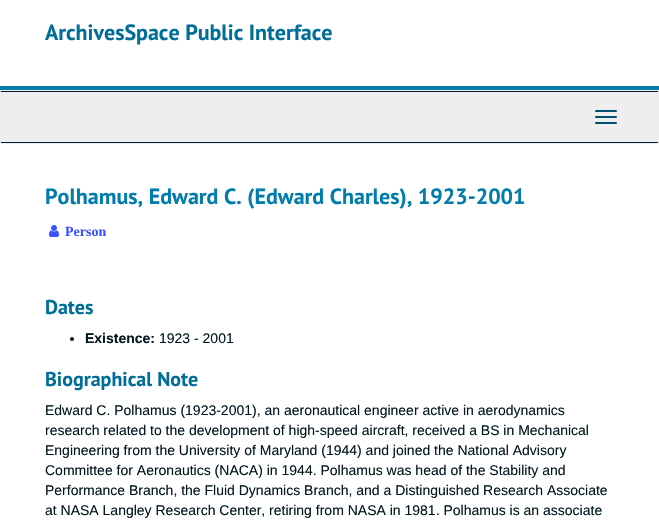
void draw(SkCanvas* canvas) {
	SkPaint paint;
	paint.setAntiAlias(true);
	canvas->clear(0xffffffff);
	paint.setColor(0xff007cad);
	canvas->drawRect(SkRect::MakeXYWH(0, 86, 659, 4), paint);
	SkFont f1(fontMgr->matchFamilyStyle("PT Sans", SkFontStyle::Bold()), 22);
	f1.setSubpixel(true);
	paint.setColor(0xff006e99);
	canvas->drawString("ArchivesSpace Public Interface", 45, 40, f1, paint);
	paint.setColor(0xffeeeeee);
	canvas->drawRect(SkRect::MakeXYWH(0, 90, 659, 54), paint);
	paint.setColor(0xff041c2f);
	canvas->drawRect(SkRect::MakeXYWH(1, 91, 657, 1), paint);
	canvas->drawRect(SkRect::MakeXYWH(1, 142, 657, 1), paint);
	paint.setColor(0xff004f6f);
	canvas->drawRoundRect(SkRect::MakeXYWH(595, 110, 22, 2), 1, 1, paint);
	canvas->drawRoundRect(SkRect::MakeXYWH(595, 116, 22, 2), 1, 1, paint);
	canvas->drawRoundRect(SkRect::MakeXYWH(595, 122, 22, 2), 1, 1, paint);
	paint.setColor(0xff007cad);
	canvas->drawString("Polhamus, Edward C. (Edward Charles), 1923-2001", 45, 204, f1, paint);
	canvas->drawImageRect(SkImages::DeferredFromEncodedData(SkData::MakeFromFileName("img1.png")), SkRect::MakeXYWH(49, 225, 10, 12), SkSamplingOptions());
	SkFont f2(fontMgr->matchFamilyStyle("Liberation Serif", SkFontStyle::Bold()), 14);
	f2.setSubpixel(true);
	paint.setColor(0xff3b52ff);
	canvas->drawString("Person", 65, 236, f2, paint);
	SkFont f3(fontMgr->matchFamilyStyle("PT Sans", SkFontStyle::Bold()), 20);
	f3.setSubpixel(true);
	paint.setColor(0xff006e99);
	canvas->drawString("Dates", 45, 314, f3, paint);
	paint.setColor(0xff00171f);
	canvas->drawCircle(72, 339, 2, paint);
	SkFont f4(fontMgr->matchFamilyStyle("Liberation Sans", SkFontStyle::Bold()), 14);
	f4.setSubpixel(true);
	canvas->drawString("Existence:", 85, 343, f4, paint);
	SkFont f5(fontMgr->matchFamilyStyle("Liberation Sans", SkFontStyle::Normal()), 14);
	f5.setSubpixel(true);
	canvas->drawString("1923 - 2001", 159, 343, f5, paint);
	paint.setColor(0xff006e99);
	canvas->drawString("Biographical Note", 45, 386, f3, paint);
	paint.setColor(0xff00171f);
	canvas->drawString("Edward C. Polhamus (1923-2001), an aeronautical engineer active in aerodynamics", 45, 415, f5, paint);
	canvas->drawString("research related to the development of high-speed aircraft, received a BS in Mechanical", 45, 435, f5, paint);
	canvas->drawString("Engineering from the University of Maryland (1944) and joined the National Advisory", 45, 455, f5, paint);
	canvas->drawString("Committee for Aeronautics (NACA) in 1944. Polhamus was head of the Stability and", 45, 475, f5, paint);
	canvas->drawString("Performance Branch, the Fluid Dynamics Branch, and a Distinguished Research Associate", 45, 495, f5, paint);
	canvas->drawString("at NASA Langley Research Center, retiring from NASA in 1981. Polhamus is an associate", 45, 515, f5, paint);
}
